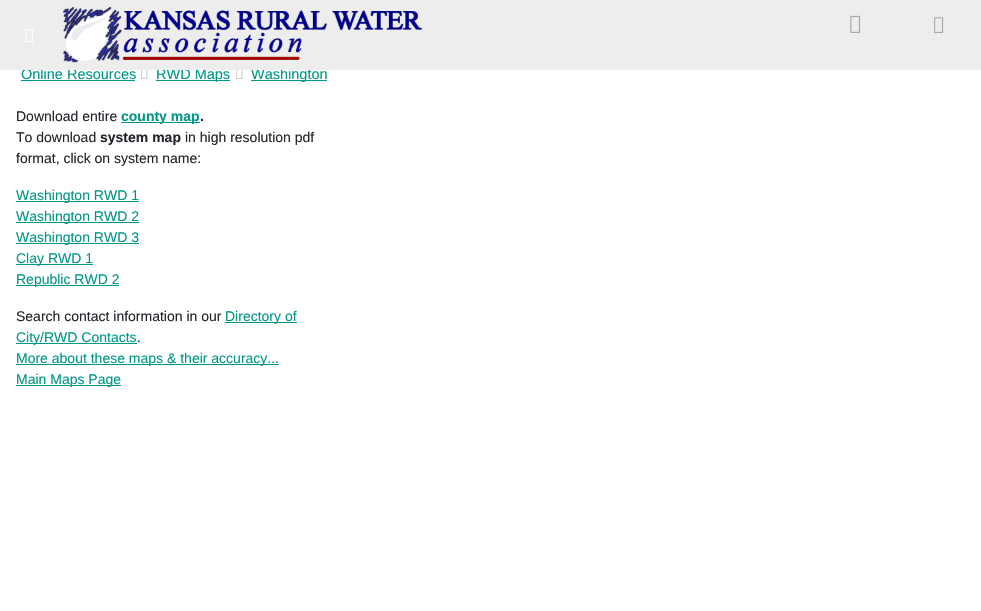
void draw(SkCanvas* canvas) {
	SkPaint paint;
	paint.setAntiAlias(true);
	canvas->clear(0xffffffff);
	SkFont f1(fontMgr->matchFamilyStyle("Liberation Sans", SkFontStyle::Normal()), 14.5);
	f1.setSubpixel(true);
	paint.setColor(0xff009688);
	canvas->drawString("Online Resources", 21, 79, f1, paint);
	canvas->drawRect(SkRect::MakeXYWH(156, 80, 74, 1), paint);
	canvas->drawString("RWD Maps", 156, 79, f1, paint);
	canvas->drawRect(SkRect::MakeXYWH(251, 80, 76, 1), paint);
	canvas->drawString("Washington", 251, 79, f1, paint);
	paint.setColor(0xffededed);
	canvas->drawRect(SkRect::MakeXYWH(0, 0, 981, 70), paint);
	canvas->drawImageRect(SkImages::DeferredFromEncodedData(SkData::MakeFromFileName("img1.png")), SkRect::MakeXYWH(62, 6, 361, 57), SkSamplingOptions());
	canvas->drawImageRect(SkImages::DeferredFromEncodedData(SkData::MakeFromFileName("img2.png")), SkRect::MakeXYWH(850, 15, 11, 18), SkSamplingOptions());
	canvas->drawImageRect(SkImages::DeferredFromEncodedData(SkData::MakeFromFileName("img3.png")), SkRect::MakeXYWH(934, 17, 10, 16), SkSamplingOptions());
	canvas->drawImageRect(SkImages::DeferredFromEncodedData(SkData::MakeFromFileName("img4.png")), SkRect::MakeXYWH(25, 29, 8, 13), SkSamplingOptions());
	paint.setColor(0xff009688);
	canvas->drawRect(SkRect::MakeXYWH(21, 80, 114, 1), paint);
	canvas->drawImageRect(SkImages::DeferredFromEncodedData(SkData::MakeFromFileName("img5.png")), SkRect::MakeXYWH(141, 70, 7, 9), SkSamplingOptions());
	canvas->drawImageRect(SkImages::DeferredFromEncodedData(SkData::MakeFromFileName("img5.png")), SkRect::MakeXYWH(236, 70, 7, 9), SkSamplingOptions());
	SkFont f2(fontMgr->matchFamilyStyle("Liberation Sans", SkFontStyle::Normal()), 14);
	f2.setSubpixel(true);
	paint.setColor(0xff212529);
	canvas->drawString("Download entire", 16, 121, f2, paint);
	paint.setColor(0xff009688);
	canvas->drawRect(SkRect::MakeXYWH(121, 122, 79, 1), paint);
	SkFont f3(fontMgr->matchFamilyStyle("Liberation Sans", SkFontStyle::Bold()), 14);
	f3.setSubpixel(true);
	canvas->drawString("county map", 121, 121, f3, paint);
	paint.setColor(0xff212529);
	canvas->drawString(".", 200, 121, f3, paint);
	canvas->drawString("To download", 16, 142, f2, paint);
	canvas->drawString("system map", 100, 142, f3, paint);
	canvas->drawString("in high resolution pdf", 185, 142, f2, paint);
	canvas->drawString("format, click on system name:", 16, 163, f2, paint);
	paint.setColor(0xff009688);
	canvas->drawRect(SkRect::MakeXYWH(16, 201, 123, 1), paint);
	canvas->drawString("Washington RWD 1", 16, 200, f2, paint);
	canvas->drawRect(SkRect::MakeXYWH(16, 222, 123, 1), paint);
	canvas->drawString("Washington RWD 2", 16, 221, f2, paint);
	canvas->drawRect(SkRect::MakeXYWH(16, 243, 123, 1), paint);
	canvas->drawString("Washington RWD 3", 16, 242, f2, paint);
	canvas->drawRect(SkRect::MakeXYWH(16, 264, 77, 1), paint);
	canvas->drawString("Clay RWD 1", 16, 263, f2, paint);
	canvas->drawRect(SkRect::MakeXYWH(16, 285, 103, 1), paint);
	canvas->drawString("Republic RWD 2", 16, 284, f2, paint);
	paint.setColor(0xff212529);
	canvas->drawString("Search contact information in our", 16, 321, f2, paint);
	paint.setColor(0xff009688);
	canvas->drawRect(SkRect::MakeXYWH(225, 322, 72, 1), paint);
	canvas->drawString("Directory of", 225, 321, f2, paint);
	canvas->drawRect(SkRect::MakeXYWH(16, 343, 121, 1), paint);
	canvas->drawString("City/RWD Contacts", 16, 342, f2, paint);
	paint.setColor(0xff212529);
	canvas->drawString(".", 137, 342, f2, paint);
	paint.setColor(0xff009688);
	canvas->drawRect(SkRect::MakeXYWH(16, 364, 263, 1), paint);
	canvas->drawString("More about these maps & their accuracy...", 16, 363, f2, paint);
	canvas->drawRect(SkRect::MakeXYWH(16, 385, 105, 1), paint);
	canvas->drawString("Main Maps Page", 16, 384, f2, paint);
}
